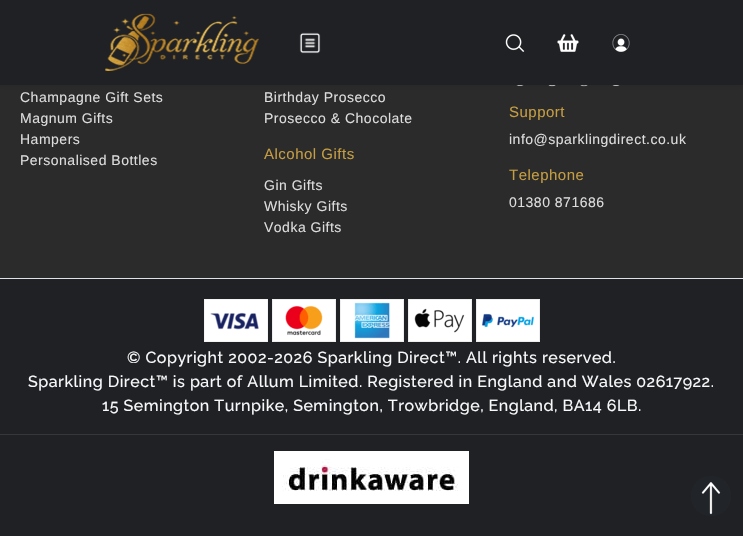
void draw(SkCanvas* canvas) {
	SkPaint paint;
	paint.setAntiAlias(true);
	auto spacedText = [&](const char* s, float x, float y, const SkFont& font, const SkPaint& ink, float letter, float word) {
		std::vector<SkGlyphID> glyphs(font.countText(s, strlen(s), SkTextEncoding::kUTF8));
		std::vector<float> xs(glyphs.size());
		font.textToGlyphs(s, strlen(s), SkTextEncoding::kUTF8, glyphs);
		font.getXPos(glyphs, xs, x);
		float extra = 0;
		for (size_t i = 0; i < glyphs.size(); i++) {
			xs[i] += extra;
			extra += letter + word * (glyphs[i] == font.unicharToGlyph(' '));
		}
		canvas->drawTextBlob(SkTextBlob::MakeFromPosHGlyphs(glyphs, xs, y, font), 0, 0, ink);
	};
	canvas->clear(0xff2b2b2b);
	canvas->drawImageRect(SkImages::DeferredFromEncodedData(SkData::MakeFromFileName("img6.png")), SkRect::MakeXYWH(516, 85, 8, 1), SkSamplingOptions());
	canvas->drawImageRect(SkImages::DeferredFromEncodedData(SkData::MakeFromFileName("img7.png")), SkRect::MakeXYWH(548, 85, 8, 2), SkSamplingOptions());
	canvas->drawImageRect(SkImages::DeferredFromEncodedData(SkData::MakeFromFileName("img8.png")), SkRect::MakeXYWH(580, 85, 8, 2), SkSamplingOptions());
	canvas->drawImageRect(SkImages::DeferredFromEncodedData(SkData::MakeFromFileName("img9.png")), SkRect::MakeXYWH(612, 85, 8, 1), SkSamplingOptions());
	paint.setColor(0x12000000);
	paint.setMaskFilter(SkMaskFilter::MakeBlur(kNormal_SkBlurStyle, 2));
	canvas->drawRect(SkRect::MakeXYWH(0, 2, 743, 85), paint);
	paint.setMaskFilter(nullptr);
	paint.setColor(0xff202124);
	canvas->drawRect(SkRect::MakeXYWH(0, 0, 743, 85), paint);
	canvas->drawImageRect(SkImages::DeferredFromEncodedData(SkData::MakeFromFileName("img1.png")), SkRect::MakeXYWH(105, 13, 154, 58), SkSamplingOptions());
	canvas->drawImageRect(SkImages::DeferredFromEncodedData(SkData::MakeFromFileName("img2.png")), SkRect::MakeXYWH(299, 32, 22, 22), SkSamplingOptions());
	canvas->drawImageRect(SkImages::DeferredFromEncodedData(SkData::MakeFromFileName("img3.png")), SkRect::MakeXYWH(505, 34, 20, 18), SkSamplingOptions());
	canvas->drawImageRect(SkImages::DeferredFromEncodedData(SkData::MakeFromFileName("img4.png")), SkRect::MakeXYWH(557, 34, 22, 18), SkSamplingOptions());
	canvas->drawImageRect(SkImages::DeferredFromEncodedData(SkData::MakeFromFileName("img5.png")), SkRect::MakeXYWH(612, 34, 18, 18), SkSamplingOptions());
	SkFont f1(fontMgr->matchFamilyStyle("Liberation Sans", SkFontStyle::Normal()), 14);
	f1.setSubpixel(true);
	paint.setColor(0xffdddddd);
	spacedText("Champagne Gift Sets", 20, 102, f1, paint, 0.5, 0);
	spacedText("Magnum Gifts", 20, 123, f1, paint, 0.5, 0);
	spacedText("Hampers", 20, 144, f1, paint, 0.5, 0);
	spacedText("Personalised Bottles", 20, 165, f1, paint, 0.5, 0);
	spacedText("Birthday Prosecco", 264, 102, f1, paint, 0.5, 0);
	spacedText("Prosecco & Chocolate", 264, 123, f1, paint, 0.5, 0);
	SkFont f2(fontMgr->matchFamilyStyle("Liberation Sans", SkFontStyle::Normal()), 15);
	f2.setSubpixel(true);
	paint.setColor(0xffc59d42);
	spacedText("Alcohol Gifts", 264, 159, f2, paint, 0.5, 0);
	paint.setColor(0xffdddddd);
	spacedText("Gin Gifts", 264, 190, f1, paint, 0.5, 0);
	spacedText("Whisky Gifts", 264, 211, f1, paint, 0.5, 0);
	spacedText("Vodka Gifts", 264, 232, f1, paint, 0.5, 0);
	paint.setColor(0xffc59d42);
	spacedText("Support", 509, 117, f2, paint, 0.5, 0);
	paint.setColor(0xffdddddd);
	spacedText("info@sparklingdirect.co.uk", 509, 144, f1, paint, 0.5, 0);
	paint.setColor(0xffc59d42);
	spacedText("Telephone", 509, 180, f2, paint, 0.5, 0);
	paint.setColor(0xffdddddd);
	spacedText("01380 871686", 509, 207, f1, paint, 0.5, 0);
	paint.setColor(0xff202124);
	canvas->drawRect(SkRect::MakeXYWH(0, 279, 743, 257), paint);
	paint.setColor(0xffdee2e6);
	canvas->drawRect(SkRect::MakeXYWH(0, 278, 743, 1), paint);
	canvas->drawImageRect(SkImages::DeferredFromEncodedData(SkData::MakeFromFileName("img10.png")), SkRect::MakeXYWH(204, 299, 336, 43), SkSamplingOptions());
	SkFont f3(fontMgr->matchFamilyStyle("Raleway", SkFontStyle(500, SkFontStyle::kNormal_Width, SkFontStyle::kUpright_Slant)), 16);
	f3.setSubpixel(true);
	paint.setColor(0xfff8f9fa);
	spacedText("© Copyright 2002-2026 Sparkling Direct™. All rights reserved.", 127, 363, f3, paint, 0.5, 0);
	spacedText("Sparkling Direct™ is part of Allum Limited. Registered in England and Wales 02617922.", 28, 387, f3, paint, 0.5, 0);
	spacedText("15 Semington Turnpike, Semington, Trowbridge, England, BA14 6LB.", 102, 411, f3, paint, 0.5, 0);
	paint.setColor(0xff363739);
	canvas->drawRect(SkRect::MakeXYWH(0, 434, 743, 1), paint);
	canvas->drawImageRect(SkImages::DeferredFromEncodedData(SkData::MakeFromFileName("img11.png")), SkRect::MakeXYWH(274, 451, 195, 53), SkSamplingOptions());
	paint.setColor(0xff212529);
	canvas->drawCircle(711, 496, 20, paint);
	canvas->drawImageRect(SkImages::DeferredFromEncodedData(SkData::MakeFromFileName("img12.png")), SkRect::MakeXYWH(701, 482, 20, 33), SkSamplingOptions());
}
